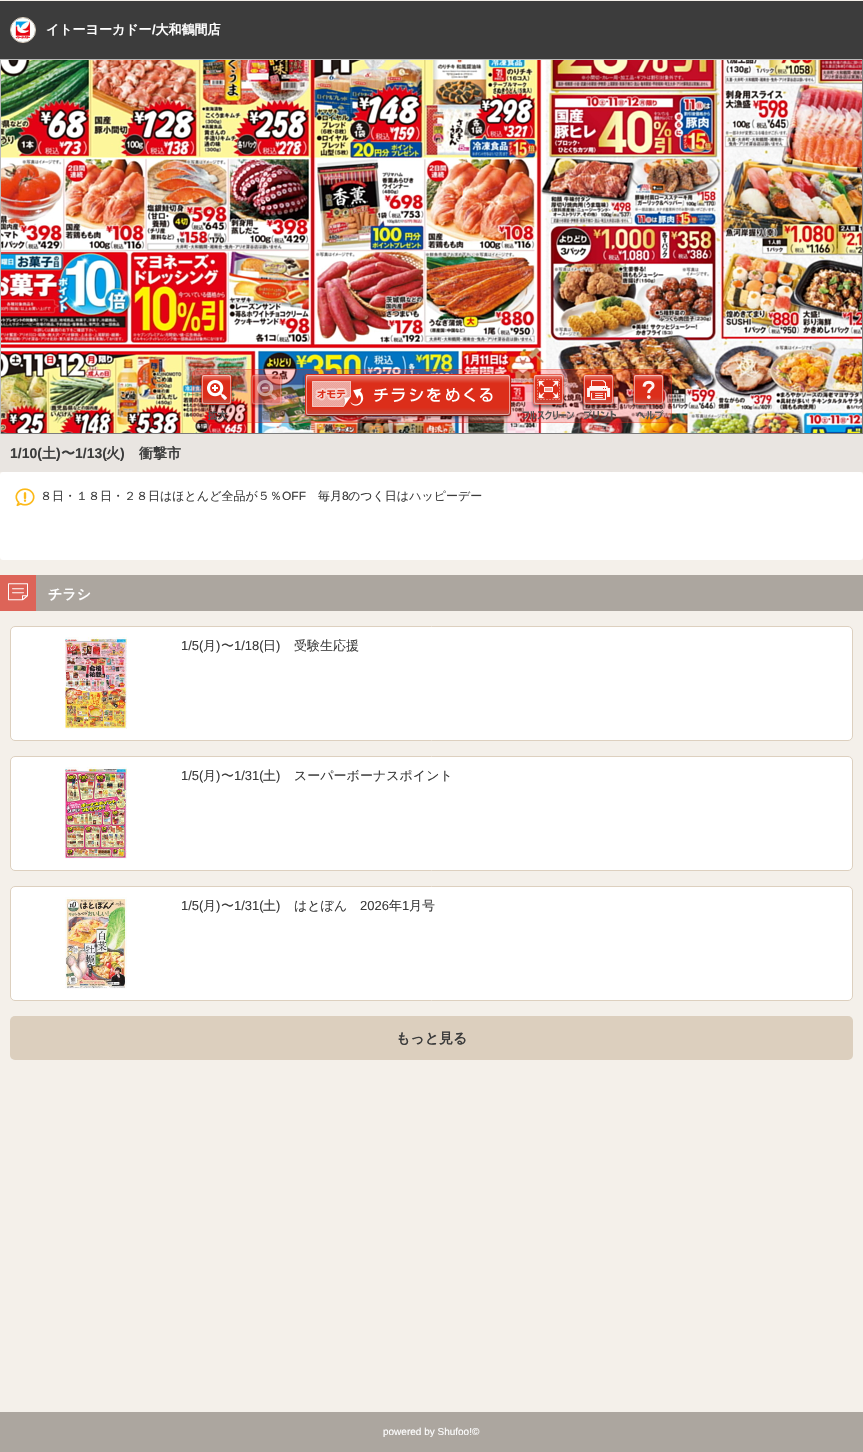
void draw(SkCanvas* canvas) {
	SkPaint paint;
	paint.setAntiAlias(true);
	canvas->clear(0xfff4f0ea);
	paint.setColor(0xff3c3c3c);
	canvas->drawRect(SkRect::MakeXYWH(0, 1, 863, 58), paint);
	paint.setStroke(true);
	paint.setStrokeWidth(1);
	paint.setColor(0xffddd0bf);
	canvas->drawCircle(23, 30, 12.5, paint);
	canvas->drawImageRect(SkImages::DeferredFromEncodedData(SkData::MakeFromFileName("img1.png")), SkRect::MakeXYWH(11, 18, 24, 24), SkSamplingOptions());
	SkFont f1(fontMgr->matchFamilyStyle("WenQuanYi Zen Hei", SkFontStyle::Bold()), 13);
	f1.setSubpixel(true);
	paint.setStroke(false);
	paint.setColor(0xffffffff);
	canvas->drawString("イトーヨーカドー 大和鶴間店", 46, 34, f1, paint);
	SkFont f2(fontMgr->matchFamilyStyle("Liberation Sans", SkFontStyle::Bold()), 13);
	f2.setSubpixel(true);
	canvas->drawString("/", 152, 34, f2, paint);
	paint.setColor(0xffbbbbbb);
	canvas->drawRect(SkRect::MakeXYWH(0, 59, 863, 1), paint);
	paint.setColor(0xff7d7d7d);
	canvas->drawRect(SkRect::MakeXYWH(862, 59, 1, 375), paint);
	canvas->drawRect(SkRect::MakeXYWH(0, 433, 863, 1), paint);
	paint.setColor(0xffbbbbbb);
	canvas->drawRect(SkRect::MakeXYWH(0, 59, 1, 375), paint);
	canvas->drawImageRect(SkImages::DeferredFromEncodedData(SkData::MakeFromFileName("img2.png")), SkRect::MakeXYWH(1, 60, 462, 325), SkSamplingOptions());
	canvas->drawImageRect(SkImages::DeferredFromEncodedData(SkData::MakeFromFileName("img3.png")), SkRect::MakeXYWH(463, 60, 399, 325), SkSamplingOptions());
	canvas->drawImageRect(SkImages::DeferredFromEncodedData(SkData::MakeFromFileName("img4.png")), SkRect::MakeXYWH(1, 385, 462, 48), SkSamplingOptions());
	canvas->drawImageRect(SkImages::DeferredFromEncodedData(SkData::MakeFromFileName("img5.png")), SkRect::MakeXYWH(463, 385, 399, 48), SkSamplingOptions());
	paint.setColor(0x33ff0000);
	canvas->drawRoundRect(SkRect::MakeXYWH(192, 369, 480, 54), 6, 6, paint);
	paint.setStroke(true);
	paint.setColor(0x4ddc2e1a);
	canvas->drawRoundRect(SkRect::MakeXYWH(192.5, 369.5, 479, 53), 5.5, 5.5, paint);
	paint.setStroke(false);
	paint.setColor(0xffdc2e1a);
	canvas->drawRoundRect(SkRect::MakeXYWH(202, 375, 29, 29), 2, 2, paint);
	paint.setStroke(true);
	paint.setColor(0xa6dc2e1a);
	canvas->drawRoundRect(SkRect::MakeXYWH(201.5, 374.5, 30, 30), 2.5, 2.5, paint);
	canvas->drawImageRect(SkImages::DeferredFromEncodedData(SkData::MakeFromFileName("img6.png")), SkRect::MakeXYWH(199, 375, 35, 34), SkSamplingOptions());
	canvas->drawImageRect(SkImages::DeferredFromEncodedData(SkData::MakeFromFileName("img7.png")), SkRect::MakeXYWH(199, 376, 35, 33), SkSamplingOptions());
	canvas->drawImageRect(SkImages::DeferredFromEncodedData(SkData::MakeFromFileName("img8.png")), SkRect::MakeXYWH(207, 410, 21, 10), SkSamplingOptions());
	paint.setStroke(false);
	paint.setColor(0x80dc2e1a);
	canvas->drawRoundRect(SkRect::MakeXYWH(252, 375, 29, 29), 2, 2, paint);
	paint.setStroke(true);
	paint.setColor(0x54dc2e1a);
	canvas->drawRoundRect(SkRect::MakeXYWH(251.5, 374.5, 30, 30), 2.5, 2.5, paint);
	canvas->drawImageRect(SkImages::DeferredFromEncodedData(SkData::MakeFromFileName("img9.png")), SkRect::MakeXYWH(250, 375, 33, 33), SkSamplingOptions());
	canvas->drawImageRect(SkImages::DeferredFromEncodedData(SkData::MakeFromFileName("img10.png")), SkRect::MakeXYWH(250, 377, 33, 31), SkSamplingOptions());
	canvas->drawImageRect(SkImages::DeferredFromEncodedData(SkData::MakeFromFileName("img11.png")), SkRect::MakeXYWH(259, 410, 21, 10), SkSamplingOptions());
	paint.setStroke(false);
	paint.setColor(0xffdc2e1a);
	canvas->drawRoundRect(SkRect::MakeXYWH(305, 374, 206, 42), 3, 3, paint);
	canvas->drawImageRect(SkImages::DeferredFromEncodedData(SkData::MakeFromFileName("img12.png")), SkRect::MakeXYWH(306, 375, 204, 40), SkSamplingOptions());
	canvas->drawImageRect(SkImages::DeferredFromEncodedData(SkData::MakeFromFileName("img13.png")), SkRect::MakeXYWH(302, 375, 210, 44), SkSamplingOptions());
	canvas->drawImageRect(SkImages::DeferredFromEncodedData(SkData::MakeFromFileName("img14.png")), SkRect::MakeXYWH(302, 375, 210, 44), SkSamplingOptions());
	canvas->drawRoundRect(SkRect::MakeXYWH(534, 375, 29, 29), 2, 2, paint);
	paint.setStroke(true);
	paint.setColor(0xa6dc2e1a);
	canvas->drawRoundRect(SkRect::MakeXYWH(533.5, 374.5, 30, 30), 2.5, 2.5, paint);
	canvas->drawImageRect(SkImages::DeferredFromEncodedData(SkData::MakeFromFileName("img15.png")), SkRect::MakeXYWH(531, 375, 35, 34), SkSamplingOptions());
	canvas->drawImageRect(SkImages::DeferredFromEncodedData(SkData::MakeFromFileName("img16.png")), SkRect::MakeXYWH(531, 376, 35, 33), SkSamplingOptions());
	canvas->drawImageRect(SkImages::DeferredFromEncodedData(SkData::MakeFromFileName("img17.png")), SkRect::MakeXYWH(522, 410, 52, 10), SkSamplingOptions());
	paint.setStroke(false);
	paint.setColor(0xffdc2e1a);
	canvas->drawRoundRect(SkRect::MakeXYWH(584, 375, 29, 29), 2, 2, paint);
	paint.setStroke(true);
	paint.setColor(0xa6dc2e1a);
	canvas->drawRoundRect(SkRect::MakeXYWH(583.5, 374.5, 30, 30), 2.5, 2.5, paint);
	canvas->drawImageRect(SkImages::DeferredFromEncodedData(SkData::MakeFromFileName("img18.png")), SkRect::MakeXYWH(581, 375, 35, 34), SkSamplingOptions());
	canvas->drawImageRect(SkImages::DeferredFromEncodedData(SkData::MakeFromFileName("img19.png")), SkRect::MakeXYWH(581, 376, 35, 33), SkSamplingOptions());
	canvas->drawImageRect(SkImages::DeferredFromEncodedData(SkData::MakeFromFileName("img20.png")), SkRect::MakeXYWH(584, 410, 32, 10), SkSamplingOptions());
	paint.setStroke(false);
	paint.setColor(0xffdc2e1a);
	canvas->drawRoundRect(SkRect::MakeXYWH(634, 375, 29, 29), 2, 2, paint);
	paint.setStroke(true);
	paint.setColor(0xa6dc2e1a);
	canvas->drawRoundRect(SkRect::MakeXYWH(633.5, 374.5, 30, 30), 2.5, 2.5, paint);
	canvas->drawImageRect(SkImages::DeferredFromEncodedData(SkData::MakeFromFileName("img21.png")), SkRect::MakeXYWH(631, 375, 35, 34), SkSamplingOptions());
	canvas->drawImageRect(SkImages::DeferredFromEncodedData(SkData::MakeFromFileName("img22.png")), SkRect::MakeXYWH(631, 377, 35, 32), SkSamplingOptions());
	canvas->drawImageRect(SkImages::DeferredFromEncodedData(SkData::MakeFromFileName("img23.png")), SkRect::MakeXYWH(636, 410, 28, 10), SkSamplingOptions());
	paint.setStroke(false);
	paint.setColor(0xffe9e5e1);
	canvas->drawRect(SkRect::MakeXYWH(0, 434, 863, 38), paint);
	SkFont f3(fontMgr->matchFamilyStyle("Liberation Sans", SkFontStyle::Bold()), 14);
	f3.setSubpixel(true);
	paint.setColor(0xff3c3c3c);
	canvas->drawString("1/10(", 10, 458, f3, paint);
	SkFont f4(fontMgr->matchFamilyStyle("WenQuanYi Zen Hei", SkFontStyle::Bold()), 14);
	f4.setSubpixel(true);
	canvas->drawString("土", 42, 458, f4, paint);
	canvas->drawString(")", 56, 458, f3, paint);
	canvas->drawString("〜", 61, 458, f4, paint);
	canvas->drawString("1/13(", 75, 458, f3, paint);
	canvas->drawString("火", 106, 458, f4, paint);
	canvas->drawString(")", 120, 458, f3, paint);
	canvas->drawString("衝撃市", 139, 458, f4, paint);
	paint.setColor(0xffffffff);
	canvas->drawRoundRect(SkRect::MakeXYWH(0, 472, 863, 88), 3, 3, paint);
	canvas->drawImageRect(SkImages::DeferredFromEncodedData(SkData::MakeFromFileName("img24.png")), SkRect::MakeXYWH(15, 488, 20, 19), SkSamplingOptions());
	SkFont f5(fontMgr->matchFamilyStyle("WenQuanYi Zen Hei", SkFontStyle(500, SkFontStyle::kNormal_Width, SkFontStyle::kUpright_Slant)), 12);
	f5.setSubpixel(true);
	paint.setColor(0xff3c3c3c);
	canvas->drawString("８日・１８日・２８日はほとんど全品が５％", 40, 500, f5, paint);
	SkFont f6(fontMgr->matchFamilyStyle("Liberation Sans", SkFontStyle::Normal()), 12);
	f6.setSubpixel(true);
	canvas->drawString("OFF", 282, 500, f6, paint);
	canvas->drawString("毎月", 318, 500, f5, paint);
	canvas->drawString("8", 342, 500, f6, paint);
	canvas->drawString("のつく日はハッピーデー", 348, 500, f5, paint);
	paint.setColor(0xffaca69f);
	canvas->drawRect(SkRect::MakeXYWH(36, 575, 827, 36), paint);
	paint.setColor(0xffdd6458);
	canvas->drawRect(SkRect::MakeXYWH(0, 575, 36, 36), paint);
	canvas->drawImageRect(SkImages::DeferredFromEncodedData(SkData::MakeFromFileName("img25.png")), SkRect::MakeXYWH(8, 583, 20, 18), SkSamplingOptions());
	paint.setColor(0xffffffff);
	canvas->drawString("チラシ", 48, 599, f4, paint);
	canvas->drawRoundRect(SkRect::MakeXYWH(10.5, 626.5, 842, 114), 4.5, 4.5, paint);
	paint.setStroke(true);
	paint.setColor(0xffddd0bf);
	canvas->drawRoundRect(SkRect::MakeXYWH(10.5, 626.5, 842, 114), 4.5, 4.5, paint);
	canvas->drawImageRect(SkImages::DeferredFromEncodedData(SkData::MakeFromFileName("img26.png")), SkRect::MakeXYWH(65, 637, 62, 92), SkSamplingOptions());
	SkFont f7(fontMgr->matchFamilyStyle("Liberation Sans", SkFontStyle::Normal()), 13);
	f7.setSubpixel(true);
	paint.setStroke(false);
	paint.setColor(0xff3c3c3c);
	canvas->drawString("1/5(", 181, 650, f7, paint);
	SkFont f8(fontMgr->matchFamilyStyle("WenQuanYi Zen Hei", SkFontStyle(500, SkFontStyle::kNormal_Width, SkFontStyle::kUpright_Slant)), 13);
	f8.setSubpixel(true);
	canvas->drawString("月", 203, 650, f8, paint);
	canvas->drawString(")", 216, 650, f7, paint);
	canvas->drawString("〜", 221, 650, f8, paint);
	canvas->drawString("1/18(", 234, 650, f7, paint);
	canvas->drawString("日", 263, 650, f8, paint);
	canvas->drawString(")", 276, 650, f7, paint);
	canvas->drawString("受験生応援", 294, 650, f8, paint);
	paint.setColor(0xffffffff);
	canvas->drawRoundRect(SkRect::MakeXYWH(10.5, 756.5, 842, 114), 4.5, 4.5, paint);
	paint.setStroke(true);
	paint.setColor(0xffddd0bf);
	canvas->drawRoundRect(SkRect::MakeXYWH(10.5, 756.5, 842, 114), 4.5, 4.5, paint);
	canvas->drawImageRect(SkImages::DeferredFromEncodedData(SkData::MakeFromFileName("img27.png")), SkRect::MakeXYWH(65, 767, 62, 92), SkSamplingOptions());
	paint.setStroke(false);
	paint.setColor(0xff3c3c3c);
	canvas->drawString("1/5(", 181, 780, f7, paint);
	canvas->drawString("月", 203, 780, f8, paint);
	canvas->drawString(")", 216, 780, f7, paint);
	canvas->drawString("〜", 221, 780, f8, paint);
	canvas->drawString("1/31(", 234, 780, f7, paint);
	canvas->drawString("土", 263, 780, f8, paint);
	canvas->drawString(")", 276, 780, f7, paint);
	canvas->drawString("スーパーボーナスポイント", 294, 780, f8, paint);
	paint.setColor(0xffffffff);
	canvas->drawRoundRect(SkRect::MakeXYWH(10.5, 886.5, 842, 114), 4.5, 4.5, paint);
	paint.setStroke(true);
	paint.setColor(0xffddd0bf);
	canvas->drawRoundRect(SkRect::MakeXYWH(10.5, 886.5, 842, 114), 4.5, 4.5, paint);
	canvas->drawImageRect(SkImages::DeferredFromEncodedData(SkData::MakeFromFileName("img28.png")), SkRect::MakeXYWH(65, 897, 62, 92), SkSamplingOptions());
	paint.setStroke(false);
	paint.setColor(0xff3c3c3c);
	canvas->drawString("1/5(", 181, 910, f7, paint);
	canvas->drawString("月", 203, 910, f8, paint);
	canvas->drawString(")", 216, 910, f7, paint);
	canvas->drawString("〜", 221, 910, f8, paint);
	canvas->drawString("1/31(", 234, 910, f7, paint);
	canvas->drawString("土", 263, 910, f8, paint);
	canvas->drawString(")", 276, 910, f7, paint);
	canvas->drawString("はとぼん", 294, 910, f8, paint);
	canvas->drawString("2026", 360, 910, f7, paint);
	canvas->drawString("年", 389, 910, f8, paint);
	canvas->drawString("1", 402, 910, f7, paint);
	canvas->drawString("月号", 409, 910, f8, paint);
	paint.setColor(0xffdccfbe);
	canvas->drawRoundRect(SkRect::MakeXYWH(10, 1016, 843, 44), 5, 5, paint);
	paint.setColor(0xff3c3c3c);
	canvas->drawString("もっと見る", 396, 1043, f4, paint);
	paint.setColor(0xffaca69f);
	canvas->drawRect(SkRect::MakeXYWH(0, 1412, 863, 40), paint);
	SkFont f9(fontMgr->matchFamilyStyle("Liberation Sans", SkFontStyle::Normal()), 10);
	f9.setSubpixel(true);
	paint.setColor(0xffffffff);
	canvas->drawString("powered by Shufoo!©", 383, 1435, f9, paint);
}
